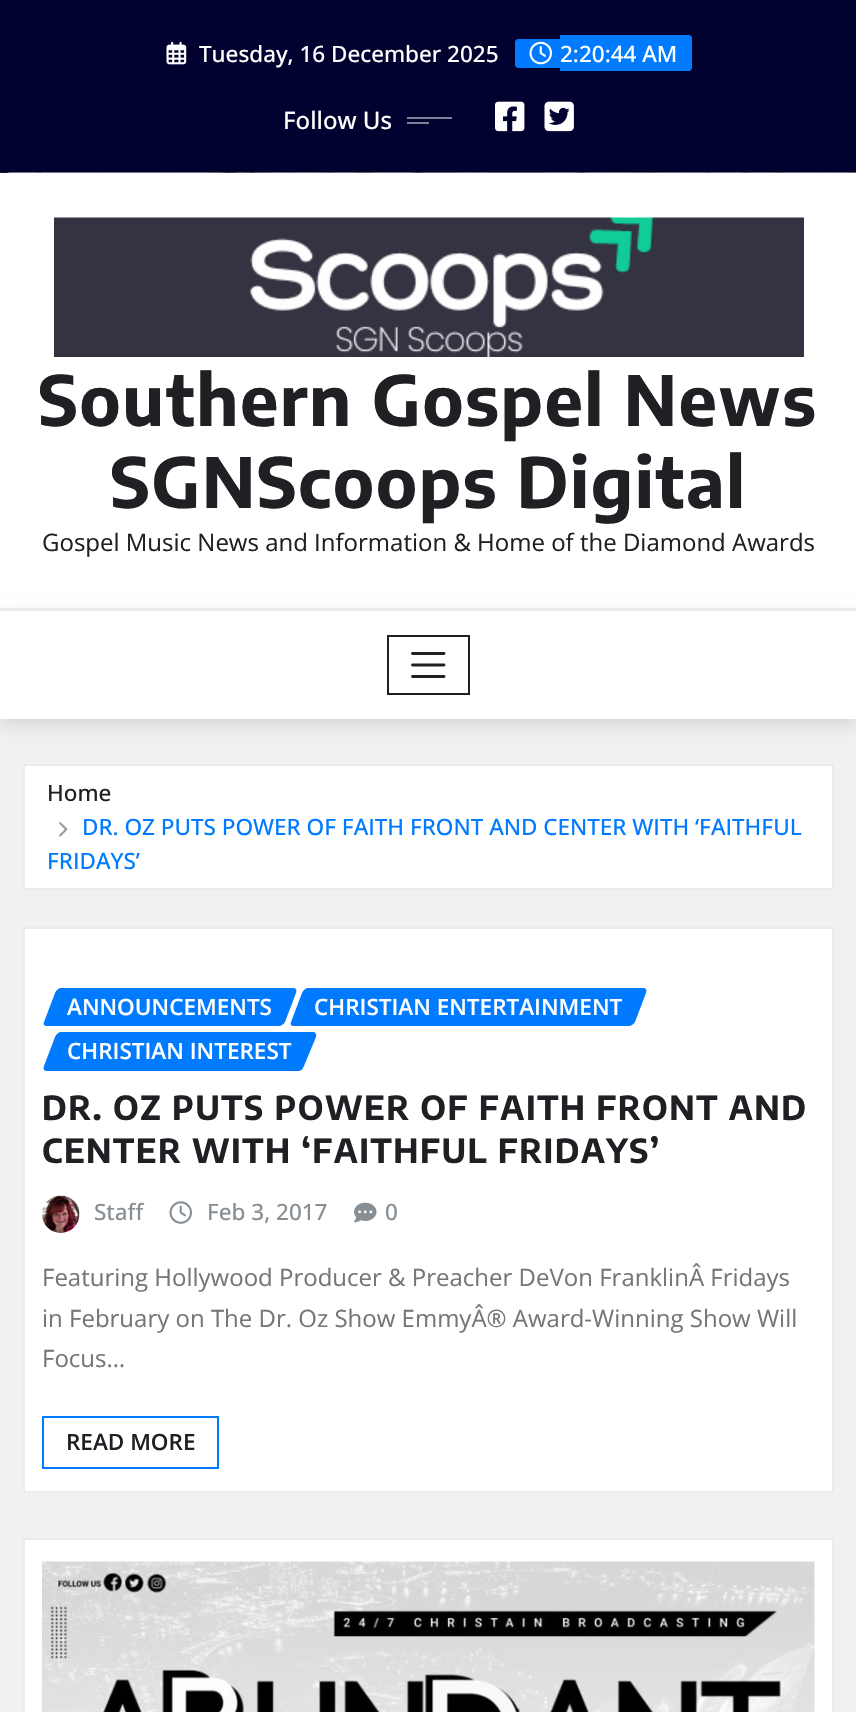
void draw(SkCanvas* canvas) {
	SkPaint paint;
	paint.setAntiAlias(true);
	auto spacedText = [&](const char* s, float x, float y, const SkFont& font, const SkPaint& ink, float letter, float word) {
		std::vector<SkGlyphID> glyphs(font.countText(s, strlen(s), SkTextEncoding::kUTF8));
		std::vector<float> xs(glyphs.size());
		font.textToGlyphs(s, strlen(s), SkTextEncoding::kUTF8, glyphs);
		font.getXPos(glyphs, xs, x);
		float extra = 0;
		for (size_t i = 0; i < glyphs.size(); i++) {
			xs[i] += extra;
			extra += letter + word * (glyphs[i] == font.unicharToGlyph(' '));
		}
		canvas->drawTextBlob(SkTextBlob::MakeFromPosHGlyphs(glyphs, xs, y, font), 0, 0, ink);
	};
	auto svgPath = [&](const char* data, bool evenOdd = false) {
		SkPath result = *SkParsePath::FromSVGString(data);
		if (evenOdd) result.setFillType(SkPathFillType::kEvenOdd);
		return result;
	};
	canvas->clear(0xfff0f1f3);
	paint.setColor(0xff01012f);
	canvas->drawRect(SkRect::MakeXYWH(0, 2, 856, 169), paint);
	paint.setColor(0xff01012a);
	canvas->drawRect(SkRect::MakeXYWH(0, 0, 856, 2), paint);
	canvas->drawRect(SkRect::MakeXYWH(0, 171, 856, 2), paint);
	canvas->drawImageRect(SkImages::DeferredFromEncodedData(SkData::MakeFromFileName("img1.png")), SkRect::MakeXYWH(166, 41, 21, 24), SkSamplingOptions());
	SkFont f1(fontMgr->matchFamilyStyle("Open Sans", SkFontStyle(500, SkFontStyle::kNormal_Width, SkFontStyle::kUpright_Slant)), 22.5);
	f1.setSubpixel(true);
	paint.setColor(0xffffffff);
	canvas->drawString("Tuesday, 16 December 2025", 199, 62, f1, paint);
	paint.setColor(0xff007bff);
	canvas->drawPath(svgPath("M518 39H560V68H518C516.5 68 515 66.5 515 65V42C515 40.5 516.5 39 518 39Z"), paint);
	canvas->drawImageRect(SkImages::DeferredFromEncodedData(SkData::MakeFromFileName("img2.png")), SkRect::MakeXYWH(529, 41, 23, 24), SkSamplingOptions());
	canvas->drawPath(svgPath("M560 35H689C690.5 35 692 36.5 692 38V68C692 69.5 690.5 71 689 71H560Z"), paint);
	paint.setColor(0xffffffff);
	canvas->drawString("2:20:44 AM", 560, 62, f1, paint);
	SkFont f2(fontMgr->matchFamilyStyle("Open Sans", SkFontStyle(500, SkFontStyle::kNormal_Width, SkFontStyle::kUpright_Slant)), 24);
	f2.setSubpixel(true);
	canvas->drawString("Follow Us", 283, 129, f2, paint);
	paint.setColor(0xff808097);
	canvas->drawRect(SkRect::MakeXYWH(407, 117, 45, 2), paint);
	canvas->drawRect(SkRect::MakeXYWH(407, 122, 22, 2), paint);
	canvas->drawImageRect(SkImages::DeferredFromEncodedData(SkData::MakeFromFileName("img3.png")), SkRect::MakeXYWH(495, 101, 30, 31), SkSamplingOptions());
	canvas->drawImageRect(SkImages::DeferredFromEncodedData(SkData::MakeFromFileName("img4.png")), SkRect::MakeXYWH(544, 101, 30, 31), SkSamplingOptions());
	canvas->drawImageRect(SkImages::DeferredFromEncodedData(SkData::MakeFromFileName("img5.png")), SkRect::MakeXYWH(0, 172, 856, 1), SkSamplingOptions());
	paint.setColor(0xffffffff);
	canvas->drawRect(SkRect::MakeXYWH(0, 173, 856, 435), paint);
	canvas->drawImageRect(SkImages::DeferredFromEncodedData(SkData::MakeFromFileName("img6.png")), SkRect::MakeXYWH(54, 217, 750, 140), SkSamplingOptions());
	SkFont f3(fontMgr->matchFamilyStyle("Encode Sans Condensed", SkFontStyle::Bold()), 69);
	f3.setSubpixel(true);
	paint.setColor(0xff1f2024);
	spacedText("Southern Gospel News", 38, 426, f3, paint, 1.5, 0);
	spacedText("SGNScoops Digital", 110, 508, f3, paint, 1.5, 0);
	SkFont f4(fontMgr->matchFamilyStyle("Open Sans", SkFontStyle::Normal()), 24);
	f4.setSubpixel(true);
	canvas->drawString("Gospel Music News and Information & Home of the Diamond Awards", 42, 551, f4, paint);
	paint.setColor(0x1a000000);
	paint.setMaskFilter(SkMaskFilter::MakeBlur(kNormal_SkBlurStyle, 7.5));
	canvas->drawRect(SkRect::MakeXYWH(0, 615, 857, 111), paint);
	paint.setMaskFilter(nullptr);
	paint.setColor(0xffffffff);
	canvas->drawRect(SkRect::MakeXYWH(0, 611, 856, 108), paint);
	paint.setColor(0xffebebeb);
	canvas->drawRect(SkRect::MakeXYWH(0, 608, 856, 3), paint);
	paint.setStroke(true);
	paint.setStrokeWidth(2);
	paint.setColor(0xff1f2024);
	canvas->drawRect(SkRect::MakeXYWH(388, 636, 81, 58), paint);
	paint.setStrokeWidth(2.9);
	paint.setStrokeCap(SkPaint::kRound_Cap);
	canvas->drawPath(svgPath("M412.5 653.5H444M412.5 665H444M412.5 676.5H444"), paint);
	paint.setStroke(false);
	paint.setColor(0xffffffff);
	canvas->drawRect(SkRect::MakeXYWH(24, 765, 809, 124), paint);
	paint.setStroke(true);
	paint.setStrokeWidth(2);
	paint.setStrokeCap(SkPaint::kButt_Cap);
	paint.setColor(0xffebebeb);
	canvas->drawRect(SkRect::MakeXYWH(24, 765, 809, 124), paint);
	paint.setStroke(false);
	paint.setColor(0xff1f2024);
	canvas->drawString("Home", 47, 801, f1, paint);
	canvas->drawImageRect(SkImages::DeferredFromEncodedData(SkData::MakeFromFileName("img7.png")), SkRect::MakeXYWH(59, 822, 9, 15), SkSamplingOptions());
	paint.setColor(0xff007bff);
	canvas->drawString("DR. OZ PUTS POWER OF FAITH FRONT AND CENTER WITH ‘FAITHFUL", 82, 835, f1, paint);
	canvas->drawString("FRIDAYS’", 47, 869, f1, paint);
	paint.setColor(0xffffffff);
	canvas->drawRect(SkRect::MakeXYWH(24, 928, 809, 564), paint);
	paint.setStroke(true);
	paint.setColor(0xffebebeb);
	canvas->drawRect(SkRect::MakeXYWH(24, 928, 809, 564), paint);
	paint.setStroke(false);
	paint.setColor(0xff007bff);
	canvas->drawPath(svgPath("M61 988H293C296 988 297 990 296 993L285 1022C284 1024 281 1026 279 1026H47C44 1026 43 1024 44 1022L55 993C56 990 59 988 61 988Z"), paint);
	SkFont f5(fontMgr->matchFamilyStyle("Open Sans", SkFontStyle(600, SkFontStyle::kNormal_Width, SkFontStyle::kUpright_Slant)), 22.5);
	f5.setSubpixel(true);
	paint.setColor(0xffffffff);
	canvas->drawString("ANNOUNCEMENTS", 67, 1015, f5, paint);
	paint.setColor(0xff007bff);
	canvas->drawPath(svgPath("M308 988H643C646 988 647 990 646 993L635 1022C634 1024 631 1026 629 1026H293C291 1026 290 1024 291 1022L302 993C303 990 306 988 308 988Z"), paint);
	paint.setColor(0xffffffff);
	canvas->drawString("CHRISTIAN ENTERTAINMENT", 314, 1015, f5, paint);
	paint.setColor(0xff007bff);
	canvas->drawPath(svgPath("M61 1032H313C315 1032 317 1034 316 1037L304 1066C303 1069 301 1071 298 1071H47C44 1071 43 1069 44 1066L55 1037C56 1034 59 1032 61 1032Z"), paint);
	paint.setColor(0xffffffff);
	canvas->drawString("CHRISTIAN INTEREST", 67, 1059, f5, paint);
	SkFont f6(fontMgr->matchFamilyStyle("Encode Sans Condensed", SkFontStyle::Bold()), 33);
	f6.setSubpixel(true);
	paint.setColor(0xff1f2024);
	spacedText("DR. OZ PUTS POWER OF FAITH FRONT AND", 42, 1120, f6, paint, 1.5, 0);
	spacedText("CENTER WITH ‘FAITHFUL FRIDAYS’", 42, 1163, f6, paint, 1.5, 0);
	canvas->drawImageRect(SkImages::DeferredFromEncodedData(SkData::MakeFromFileName("img8.png")), SkRect::MakeXYWH(42, 1195, 38, 38), SkSamplingOptions());
	paint.setColor(0xff878e94);
	canvas->drawString("Staff", 94, 1220, f1, paint);
	canvas->drawImageRect(SkImages::DeferredFromEncodedData(SkData::MakeFromFileName("img9.png")), SkRect::MakeXYWH(169, 1201, 23, 23), SkSamplingOptions());
	canvas->drawString("Feb 3, 2017", 207, 1220, f1, paint);
	canvas->drawImageRect(SkImages::DeferredFromEncodedData(SkData::MakeFromFileName("img10.png")), SkRect::MakeXYWH(354, 1202, 23, 21), SkSamplingOptions());
	canvas->drawString("0", 385, 1220, f1, paint);
	paint.setColor(0xff767676);
	canvas->drawString("Featuring Hollywood Producer & Preacher DeVon FranklinÂ Fridays", 42, 1286, f4, paint);
	canvas->drawString("in February on The Dr. Oz Show EmmyÂ® Award-Winning Show Will", 42, 1327, f4, paint);
	canvas->drawString("Focus…", 42, 1367, f4, paint);
	paint.setStroke(true);
	paint.setColor(0xff007bff);
	canvas->drawRect(SkRect::MakeXYWH(43, 1417, 175, 51), paint);
	paint.setStroke(false);
	paint.setColor(0xff1f2024);
	canvas->drawString("READ MORE", 66, 1450, f5, paint);
	paint.setColor(0xffffffff);
	canvas->drawRect(SkRect::MakeXYWH(24, 1539, 809, 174), paint);
	paint.setStroke(true);
	paint.setColor(0xffebebeb);
	canvas->drawRect(SkRect::MakeXYWH(24, 1539, 809, 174), paint);
	canvas->drawImageRect(SkImages::DeferredFromEncodedData(SkData::MakeFromFileName("img11.png")), SkRect::MakeXYWH(42, 1561, 773, 151), SkSamplingOptions());
}
